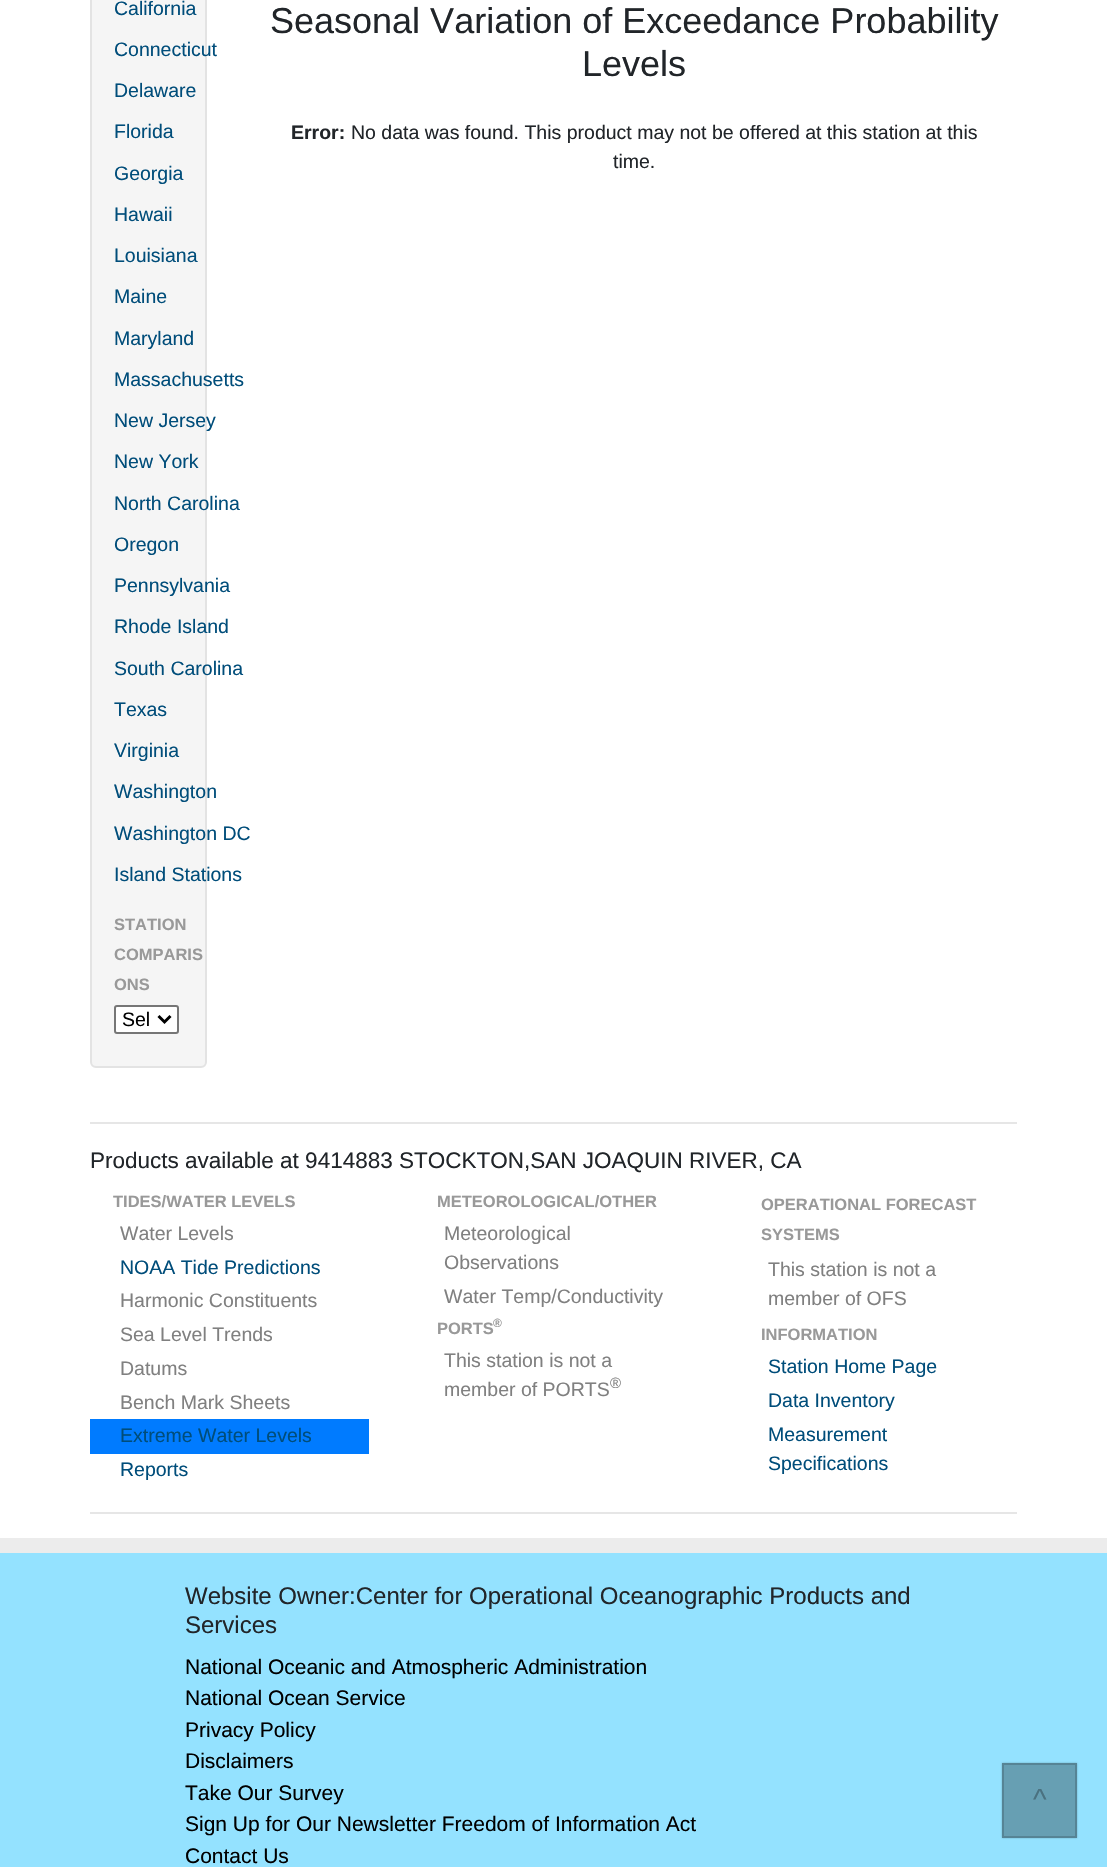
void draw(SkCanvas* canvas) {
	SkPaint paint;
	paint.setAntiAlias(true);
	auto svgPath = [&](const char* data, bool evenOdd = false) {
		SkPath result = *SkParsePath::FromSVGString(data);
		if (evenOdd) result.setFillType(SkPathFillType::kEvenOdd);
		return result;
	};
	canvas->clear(0xffffffff);
	paint.setColor(0xfff5f5f5);
	canvas->drawRoundRect(SkRect::MakeXYWH(91, -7, 115, 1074), 5, 5, paint);
	paint.setStroke(true);
	paint.setStrokeWidth(2);
	paint.setColor(0xffe3e3e3);
	canvas->drawRoundRect(SkRect::MakeXYWH(91, -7, 115, 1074), 5, 5, paint);
	SkFont f1(fontMgr->matchFamilyStyle("Liberation Sans", SkFontStyle::Normal()), 19.5);
	f1.setSubpixel(true);
	paint.setStroke(false);
	paint.setColor(0xff004d7a);
	canvas->drawString("California", 114, 15, f1, paint);
	canvas->drawString("Connecticut", 114, 56, f1, paint);
	canvas->drawString("Delaware", 114, 97, f1, paint);
	canvas->drawString("Florida", 114, 138, f1, paint);
	canvas->drawString("Georgia", 114, 180, f1, paint);
	canvas->drawString("Hawaii", 114, 221, f1, paint);
	canvas->drawString("Louisiana", 114, 262, f1, paint);
	canvas->drawString("Maine", 114, 303, f1, paint);
	canvas->drawString("Maryland", 114, 345, f1, paint);
	canvas->drawString("Massachusetts", 114, 386, f1, paint);
	canvas->drawString("New Jersey", 114, 427, f1, paint);
	canvas->drawString("New York", 114, 468, f1, paint);
	canvas->drawString("North Carolina", 114, 510, f1, paint);
	canvas->drawString("Oregon", 114, 551, f1, paint);
	canvas->drawString("Pennsylvania", 114, 592, f1, paint);
	canvas->drawString("Rhode Island", 114, 633, f1, paint);
	canvas->drawString("South Carolina", 114, 675, f1, paint);
	canvas->drawString("Texas", 114, 716, f1, paint);
	canvas->drawString("Virginia", 114, 757, f1, paint);
	canvas->drawString("Washington", 114, 798, f1, paint);
	canvas->drawString("Washington DC", 114, 840, f1, paint);
	canvas->drawString("Island Stations", 114, 881, f1, paint);
	SkFont f2(fontMgr->matchFamilyStyle("Liberation Sans", SkFontStyle::Bold()), 16.5);
	f2.setSubpixel(true);
	paint.setColor(0xff999999);
	canvas->drawString("STATION", 114, 930, f2, paint);
	canvas->drawString("COMPARIS", 114, 960, f2, paint);
	canvas->drawString("ONS", 114, 990, f2, paint);
	paint.setColor(0xffffffff);
	canvas->drawRoundRect(SkRect::MakeXYWH(115, 1006, 63, 27), 2, 2, paint);
	paint.setStroke(true);
	paint.setColor(0xff767676);
	canvas->drawRoundRect(SkRect::MakeXYWH(115, 1006, 63, 27), 2, 2, paint);
	paint.setStrokeWidth(3);
	paint.setColor(0xff000000);
	canvas->drawPath(svgPath("M158.5 1016L164.5 1022L170.5 1016"), paint);
	paint.setStroke(false);
	canvas->drawString("Sel", 122, 1026, f1, paint);
	SkFont f3(fontMgr->matchFamilyStyle("Liberation Sans", SkFontStyle::Normal()), 36);
	f3.setSubpixel(true);
	paint.setColor(0xff212529);
	canvas->drawString("Seasonal Variation of Exceedance Probability", 270, 33, f3, paint);
	canvas->drawString("Levels", 582, 76, f3, paint);
	SkFont f4(fontMgr->matchFamilyStyle("Liberation Sans", SkFontStyle::Bold()), 19.5);
	f4.setSubpixel(true);
	canvas->drawString("Error:", 291, 139, f4, paint);
	canvas->drawString("No data was found. This product may not be offered at this station at this", 351, 139, f1, paint);
	canvas->drawString("time.", 613, 168, f1, paint);
	paint.setColor(0xffe6e6e6);
	canvas->drawRect(SkRect::MakeXYWH(90, 1122, 927, 2), paint);
	SkFont f5(fontMgr->matchFamilyStyle("Liberation Sans", SkFontStyle::Normal()), 22.5);
	f5.setSubpixel(true);
	paint.setColor(0xff212529);
	canvas->drawString("Products available at 9414883 STOCKTON,SAN JOAQUIN RIVER, CA", 90, 1168, f5, paint);
	paint.setColor(0xff999999);
	canvas->drawString("TIDES/WATER LEVELS", 113, 1207, f2, paint);
	paint.setColor(0xff808080);
	canvas->drawString("Water Levels", 120, 1240, f1, paint);
	paint.setColor(0xff004d7a);
	canvas->drawString("NOAA Tide Predictions", 120, 1274, f1, paint);
	paint.setColor(0xff808080);
	canvas->drawString("Harmonic Constituents", 120, 1307, f1, paint);
	canvas->drawString("Sea Level Trends", 120, 1341, f1, paint);
	canvas->drawString("Datums", 120, 1375, f1, paint);
	canvas->drawString("Bench Mark Sheets", 120, 1409, f1, paint);
	paint.setColor(0xff007bff);
	canvas->drawRect(SkRect::MakeXYWH(90, 1419, 279, 35), paint);
	paint.setColor(0xff004d7a);
	canvas->drawString("Extreme Water Levels", 120, 1442, f1, paint);
	canvas->drawString("Reports", 120, 1476, f1, paint);
	paint.setColor(0xff999999);
	canvas->drawString("METEOROLOGICAL/OTHER", 437, 1207, f2, paint);
	paint.setColor(0xff808080);
	canvas->drawString("Meteorological", 444, 1240, f1, paint);
	canvas->drawString("Observations", 444, 1269, f1, paint);
	canvas->drawString("Water Temp/Conductivity", 444, 1303, f1, paint);
	paint.setColor(0xff999999);
	canvas->drawString("PORTS", 437, 1334, f2, paint);
	SkFont f6(fontMgr->matchFamilyStyle("Liberation Sans", SkFontStyle::Bold()), 12);
	f6.setSubpixel(true);
	canvas->drawString("®", 493, 1327, f6, paint);
	paint.setColor(0xff808080);
	canvas->drawString("This station is not a", 444, 1367, f1, paint);
	canvas->drawString("member of PORTS", 444, 1396, f1, paint);
	SkFont f7(fontMgr->matchFamilyStyle("Liberation Sans", SkFontStyle::Normal()), 15);
	f7.setSubpixel(true);
	canvas->drawString("®", 610, 1388, f7, paint);
	paint.setColor(0xff999999);
	canvas->drawString("OPERATIONAL FORECAST", 761, 1210, f2, paint);
	canvas->drawString("SYSTEMS", 761, 1240, f2, paint);
	paint.setColor(0xff808080);
	canvas->drawString("This station is not a", 768, 1276, f1, paint);
	canvas->drawString("member of OFS", 768, 1305, f1, paint);
	paint.setColor(0xff999999);
	canvas->drawString("INFORMATION", 761, 1340, f2, paint);
	paint.setColor(0xff004d7a);
	canvas->drawString("Station Home Page", 768, 1373, f1, paint);
	canvas->drawString("Data Inventory", 768, 1407, f1, paint);
	canvas->drawString("Measurement", 768, 1441, f1, paint);
	canvas->drawString("Specifications", 768, 1470, f1, paint);
	paint.setColor(0xffe6e6e6);
	canvas->drawRect(SkRect::MakeXYWH(90, 1512, 927, 2), paint);
	paint.setColor(0xffececec);
	canvas->drawRect(SkRect::MakeXYWH(0, 1538, 1107, 15), paint);
	paint.setColor(0xff94e2ff);
	canvas->drawRect(SkRect::MakeXYWH(0, 1553, 1107, 314), paint);
	SkFont f8(fontMgr->matchFamilyStyle("Liberation Sans", SkFontStyle::Normal()), 24);
	f8.setSubpixel(true);
	paint.setColor(0xff212529);
	canvas->drawString("Website Owner:Center for Operational Oceanographic Products and", 185, 1604, f8, paint);
	canvas->drawString("Services", 185, 1633, f8, paint);
	SkFont f9(fontMgr->matchFamilyStyle("Liberation Sans", SkFontStyle::Normal()), 21);
	f9.setSubpixel(true);
	paint.setColor(0xff000000);
	canvas->drawString("National Oceanic and Atmospheric Administration", 185, 1674, f9, paint);
	canvas->drawString("National Ocean Service", 185, 1705, f9, paint);
	canvas->drawString("Privacy Policy", 185, 1737, f9, paint);
	canvas->drawString("Disclaimers", 185, 1768, f9, paint);
	canvas->drawString("Take Our Survey", 185, 1800, f9, paint);
	canvas->drawString("Sign Up for Our Newsletter Freedom of Information Act", 185, 1831, f9, paint);
	canvas->drawString("Contact Us", 185, 1863, f9, paint);
	canvas->save();
	canvas->clipPath(svgPath("M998 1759H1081V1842H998ZM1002 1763H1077V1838H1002Z", true), true);
	paint.setColor(0x804a7180);
	paint.setMaskFilter(SkMaskFilter::MakeBlur(kNormal_SkBlurStyle, 1));
	canvas->drawRect(SkRect::MakeXYWH(1002, 1763, 75, 75), paint);
	paint.setMaskFilter(nullptr);
	canvas->restore();
	paint.setColor(0x994a7180);
	canvas->drawRect(SkRect::MakeXYWH(1002, 1763, 75, 75), paint);
	paint.setStroke(true);
	paint.setStrokeWidth(2);
	canvas->drawRect(SkRect::MakeXYWH(1003, 1764, 73, 73), paint);
	SkFont f10(fontMgr->matchFamilyStyle("Liberation Sans", SkFontStyle::Normal()), 29);
	f10.setSubpixel(true);
	paint.setStroke(false);
	paint.setColor(0xff4a7180);
	canvas->drawString("^", 1033, 1809, f10, paint);
}
